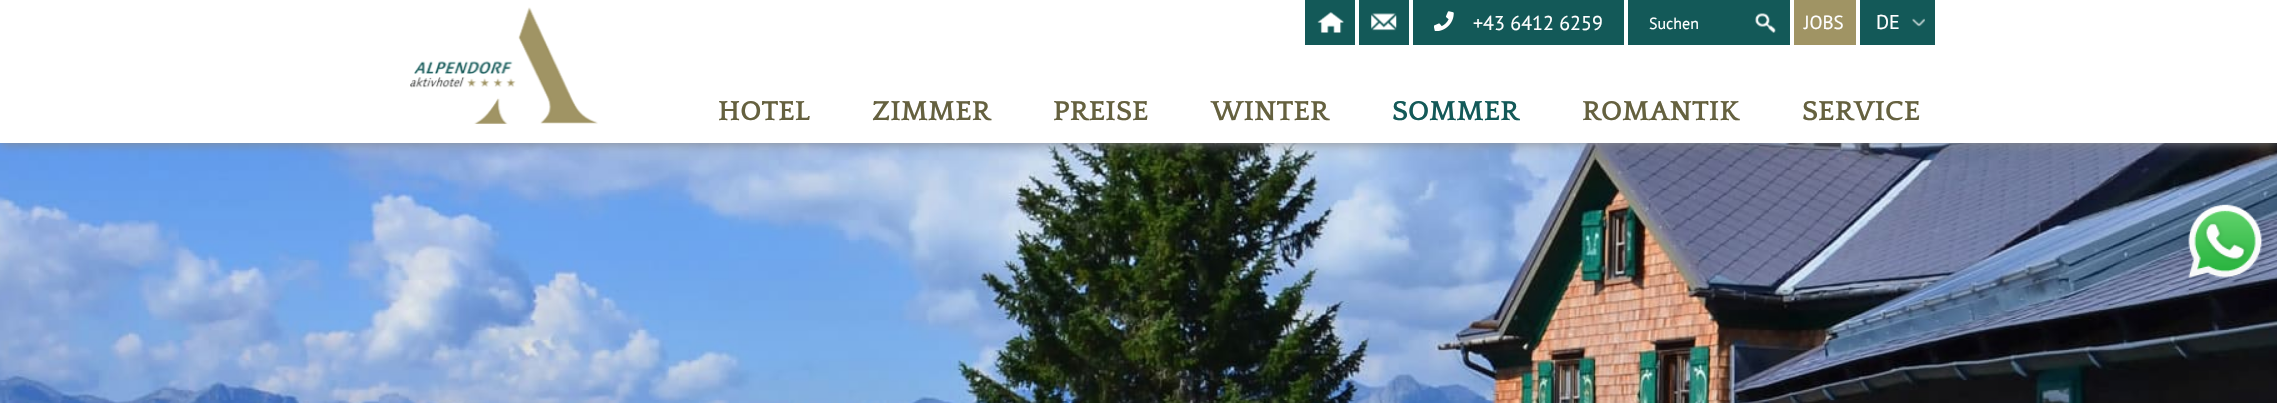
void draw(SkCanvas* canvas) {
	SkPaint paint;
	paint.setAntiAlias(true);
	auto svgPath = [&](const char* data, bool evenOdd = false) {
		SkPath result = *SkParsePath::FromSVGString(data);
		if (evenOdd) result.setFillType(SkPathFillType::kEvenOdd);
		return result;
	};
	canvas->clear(0xffffffff);
	canvas->drawImageRect(SkImages::DeferredFromEncodedData(SkData::MakeFromFileName("img7.png")), SkRect::MakeXYWH(0, 143, 2277, 260), SkSamplingOptions());
	paint.setColor(0xff888888);
	paint.setMaskFilter(SkMaskFilter::MakeBlur(kNormal_SkBlurStyle, 6));
	canvas->drawRect(SkRect::MakeXYWH(0, 0, 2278, 143), paint);
	paint.setMaskFilter(nullptr);
	paint.setColor(0xffffffff);
	canvas->drawRect(SkRect::MakeXYWH(0, 0, 2277, 143), paint);
	canvas->drawImageRect(SkImages::DeferredFromEncodedData(SkData::MakeFromFileName("img1.png")), SkRect::MakeXYWH(410, 7, 188, 117), SkSamplingOptions());
	paint.setColor(0xff135958);
	canvas->drawRect(SkRect::MakeXYWH(1305, 0, 50, 45), paint);
	canvas->drawImageRect(SkImages::DeferredFromEncodedData(SkData::MakeFromFileName("img2.png")), SkRect::MakeXYWH(1317, 12, 27, 21), SkSamplingOptions());
	canvas->drawRect(SkRect::MakeXYWH(1359, 0, 50, 45), paint);
	canvas->drawImageRect(SkImages::DeferredFromEncodedData(SkData::MakeFromFileName("img3.png")), SkRect::MakeXYWH(1371, 13, 26, 18), SkSamplingOptions());
	canvas->drawRect(SkRect::MakeXYWH(1413, 0, 211, 45), paint);
	canvas->drawImageRect(SkImages::DeferredFromEncodedData(SkData::MakeFromFileName("img4.png")), SkRect::MakeXYWH(1434, 11, 20, 20), SkSamplingOptions());
	SkFont f1(fontMgr->matchFamilyStyle("PT Sans", SkFontStyle::Normal()), 20);
	f1.setSubpixel(true);
	paint.setColor(0xffffffff);
	canvas->drawString("+43 6412 6259", 1473, 30, f1, paint);
	paint.setColor(0xff135958);
	canvas->drawRect(SkRect::MakeXYWH(1628, 0, 162, 45), paint);
	SkFont f2(fontMgr->matchFamilyStyle("PT Sans", SkFontStyle::Normal()), 16);
	f2.setSubpixel(true);
	paint.setColor(0xffffffff);
	canvas->drawString("Suchen", 1649, 29, f2, paint);
	canvas->drawImageRect(SkImages::DeferredFromEncodedData(SkData::MakeFromFileName("img5.png")), SkRect::MakeXYWH(1755, 13, 21, 20), SkSamplingOptions());
	paint.setColor(0xffa09464);
	canvas->drawRect(SkRect::MakeXYWH(1794, 0, 62, 45), paint);
	SkFont f3(fontMgr->matchFamilyStyle("PT Sans", SkFontStyle::Normal()), 19);
	f3.setSubpixel(true);
	paint.setColor(0xffffffff);
	canvas->drawString("JOBS", 1804, 29, f3, paint);
	paint.setColor(0xff135958);
	canvas->drawRect(SkRect::MakeXYWH(1860, 0, 75, 45), paint);
	paint.setColor(0xffffffff);
	canvas->drawString("DE", 1876, 29, f1, paint);
	canvas->drawImageRect(SkImages::DeferredFromEncodedData(SkData::MakeFromFileName("img6.png")), SkRect::MakeXYWH(1912, 18, 13, 9), SkSamplingOptions());
	SkFont f4(fontMgr->matchFamilyStyle("Quattrocento", SkFontStyle::Bold()), 28.75);
	f4.setSubpixel(true);
	paint.setColor(0xff65613f);
	canvas->drawString("HOTEL", 718, 120, f4, paint);
	canvas->drawString("ZIMMER", 872, 120, f4, paint);
	canvas->drawString("PREISE", 1053, 120, f4, paint);
	canvas->drawString("WINTER", 1211, 120, f4, paint);
	paint.setColor(0xff135958);
	canvas->drawString("SOMMER", 1392, 120, f4, paint);
	paint.setColor(0xff65613f);
	canvas->drawString("ROMANTIK", 1582, 120, f4, paint);
	canvas->drawString("SERVICE", 1802, 120, f4, paint);
	canvas->save();
	canvas->clipPath(svgPath("M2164 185H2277V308H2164ZM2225.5 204C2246 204 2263 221 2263 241.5C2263 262 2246 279 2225.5 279C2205 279 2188 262 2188 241.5C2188 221 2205 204 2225.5 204Z", true), true);
	paint.setColor(0x26000000);
	paint.setMaskFilter(SkMaskFilter::MakeBlur(kNormal_SkBlurStyle, 7.5));
	canvas->drawRoundRect(SkRect::MakeXYWH(2188, 209, 75, 75), 37.5, 37.5, paint);
	paint.setMaskFilter(nullptr);
	canvas->restore();
	canvas->drawImageRect(SkImages::DeferredFromEncodedData(SkData::MakeFromFileName("img8.png")), SkRect::MakeXYWH(2188, 204, 74, 74), SkSamplingOptions());
}
